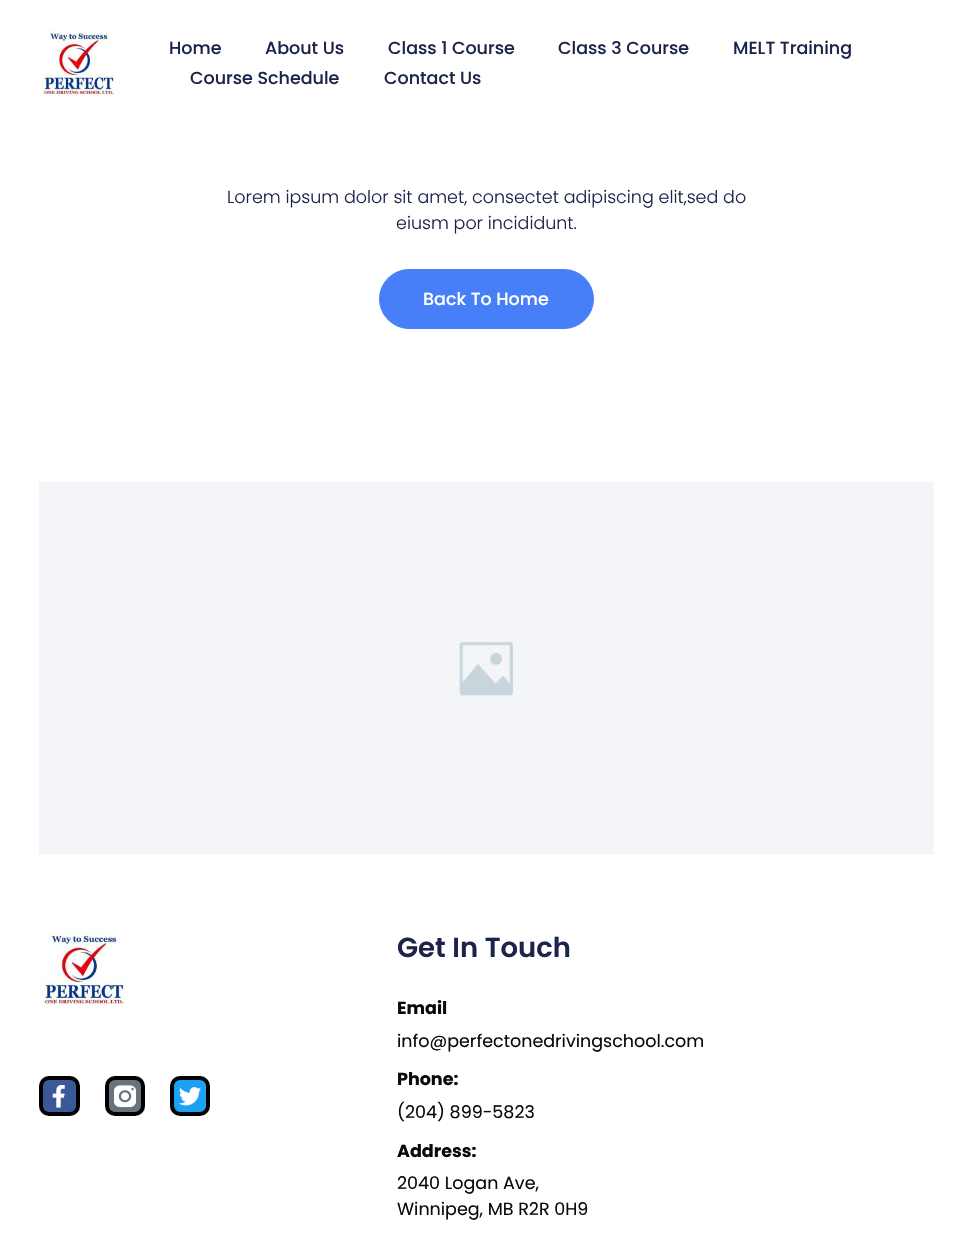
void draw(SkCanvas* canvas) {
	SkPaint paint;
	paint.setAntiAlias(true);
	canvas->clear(0xffffffff);
	canvas->drawImageRect(SkImages::DeferredFromEncodedData(SkData::MakeFromFileName("img1.png")), SkRect::MakeXYWH(39, 30, 76, 65), SkSamplingOptions());
	SkFont f1(fontMgr->matchFamilyStyle("Poppins", SkFontStyle(500, SkFontStyle::kNormal_Width, SkFontStyle::kUpright_Slant)), 17.5);
	f1.setSubpixel(true);
	paint.setColor(0xff1c244b);
	canvas->drawString("Home", 169, 54, f1, paint);
	canvas->drawString("About Us", 265, 54, f1, paint);
	canvas->drawString("Class 1 Course", 388, 54, f1, paint);
	canvas->drawString("Class 3 Course", 558, 54, f1, paint);
	canvas->drawString("MELT Training", 733, 54, f1, paint);
	canvas->drawString("Course Schedule", 190, 84, f1, paint);
	canvas->drawString("Contact Us", 384, 84, f1, paint);
	SkFont f2(fontMgr->matchFamilyStyle("Poppins", SkFontStyle(300, SkFontStyle::kNormal_Width, SkFontStyle::kUpright_Slant)), 17.5);
	f2.setSubpixel(true);
	canvas->drawString("Lorem ipsum dolor sit amet, consectet adipiscing elit,sed do", 227, 203, f2, paint);
	canvas->drawString("eiusm por incididunt.", 396, 229, f2, paint);
	paint.setColor(0xff467ff7);
	canvas->drawRoundRect(SkRect::MakeXYWH(379.5, 269.5, 214, 59), 29.5, 29.5, paint);
	paint.setStroke(true);
	paint.setStrokeWidth(1);
	canvas->drawRoundRect(SkRect::MakeXYWH(379.5, 269.5, 214, 59), 29.5, 29.5, paint);
	paint.setStroke(false);
	paint.setColor(0xffffffff);
	canvas->drawString("Back To Home", 423, 305, f1, paint);
	canvas->drawImageRect(SkImages::DeferredFromEncodedData(SkData::MakeFromFileName("img2.png")), SkRect::MakeXYWH(39, 482, 895, 373), SkSamplingOptions());
	canvas->drawImageRect(SkImages::DeferredFromEncodedData(SkData::MakeFromFileName("img3.png")), SkRect::MakeXYWH(39, 932, 86, 73), SkSamplingOptions());
	paint.setColor(0xff3b5998);
	canvas->drawRoundRect(SkRect::MakeXYWH(41, 1078, 37, 36), 8, 8, paint);
	paint.setStroke(true);
	paint.setStrokeWidth(4);
	paint.setColor(0xff000000);
	canvas->drawRoundRect(SkRect::MakeXYWH(41, 1078, 37, 36), 8, 8, paint);
	canvas->drawImageRect(SkImages::DeferredFromEncodedData(SkData::MakeFromFileName("img4.png")), SkRect::MakeXYWH(52, 1085, 13, 23), SkSamplingOptions());
	paint.setStroke(false);
	paint.setColor(0xff69727d);
	canvas->drawRoundRect(SkRect::MakeXYWH(107, 1078, 36, 36), 8, 8, paint);
	paint.setStroke(true);
	paint.setColor(0xff000000);
	canvas->drawRoundRect(SkRect::MakeXYWH(107, 1078, 36, 36), 8, 8, paint);
	canvas->drawImageRect(SkImages::DeferredFromEncodedData(SkData::MakeFromFileName("img5.png")), SkRect::MakeXYWH(114, 1085, 22, 23), SkSamplingOptions());
	paint.setStroke(false);
	paint.setColor(0xff1da1f2);
	canvas->drawRoundRect(SkRect::MakeXYWH(172, 1078, 36, 36), 8, 8, paint);
	paint.setStroke(true);
	paint.setColor(0xff000000);
	canvas->drawRoundRect(SkRect::MakeXYWH(172, 1078, 36, 36), 8, 8, paint);
	canvas->drawImageRect(SkImages::DeferredFromEncodedData(SkData::MakeFromFileName("img6.png")), SkRect::MakeXYWH(179, 1087, 22, 19), SkSamplingOptions());
	SkFont f3(fontMgr->matchFamilyStyle("Poppins", SkFontStyle(600, SkFontStyle::kNormal_Width, SkFontStyle::kUpright_Slant)), 27.5);
	f3.setSubpixel(true);
	paint.setStroke(false);
	paint.setColor(0xff1c244b);
	canvas->drawString("Get In Touch", 397, 957, f3, paint);
	SkFont f4(fontMgr->matchFamilyStyle("Poppins", SkFontStyle::Bold()), 17.5);
	f4.setSubpixel(true);
	paint.setColor(0xff0a0a0a);
	canvas->drawString("Email", 397, 1014, f4, paint);
	SkFont f5(fontMgr->matchFamilyStyle("Poppins", SkFontStyle::Normal()), 17.5);
	f5.setSubpixel(true);
	canvas->drawString("info@perfectonedrivingschool.com", 397, 1047, f5, paint);
	canvas->drawString("Phone:", 397, 1085, f4, paint);
	canvas->drawString("(204) 899-5823", 397, 1118, f5, paint);
	canvas->drawString("Address:", 397, 1157, f4, paint);
	canvas->drawString("2040 Logan Ave,", 397, 1189, f5, paint);
	canvas->drawString("Winnipeg, MB R2R 0H9", 397, 1215, f5, paint);
}
